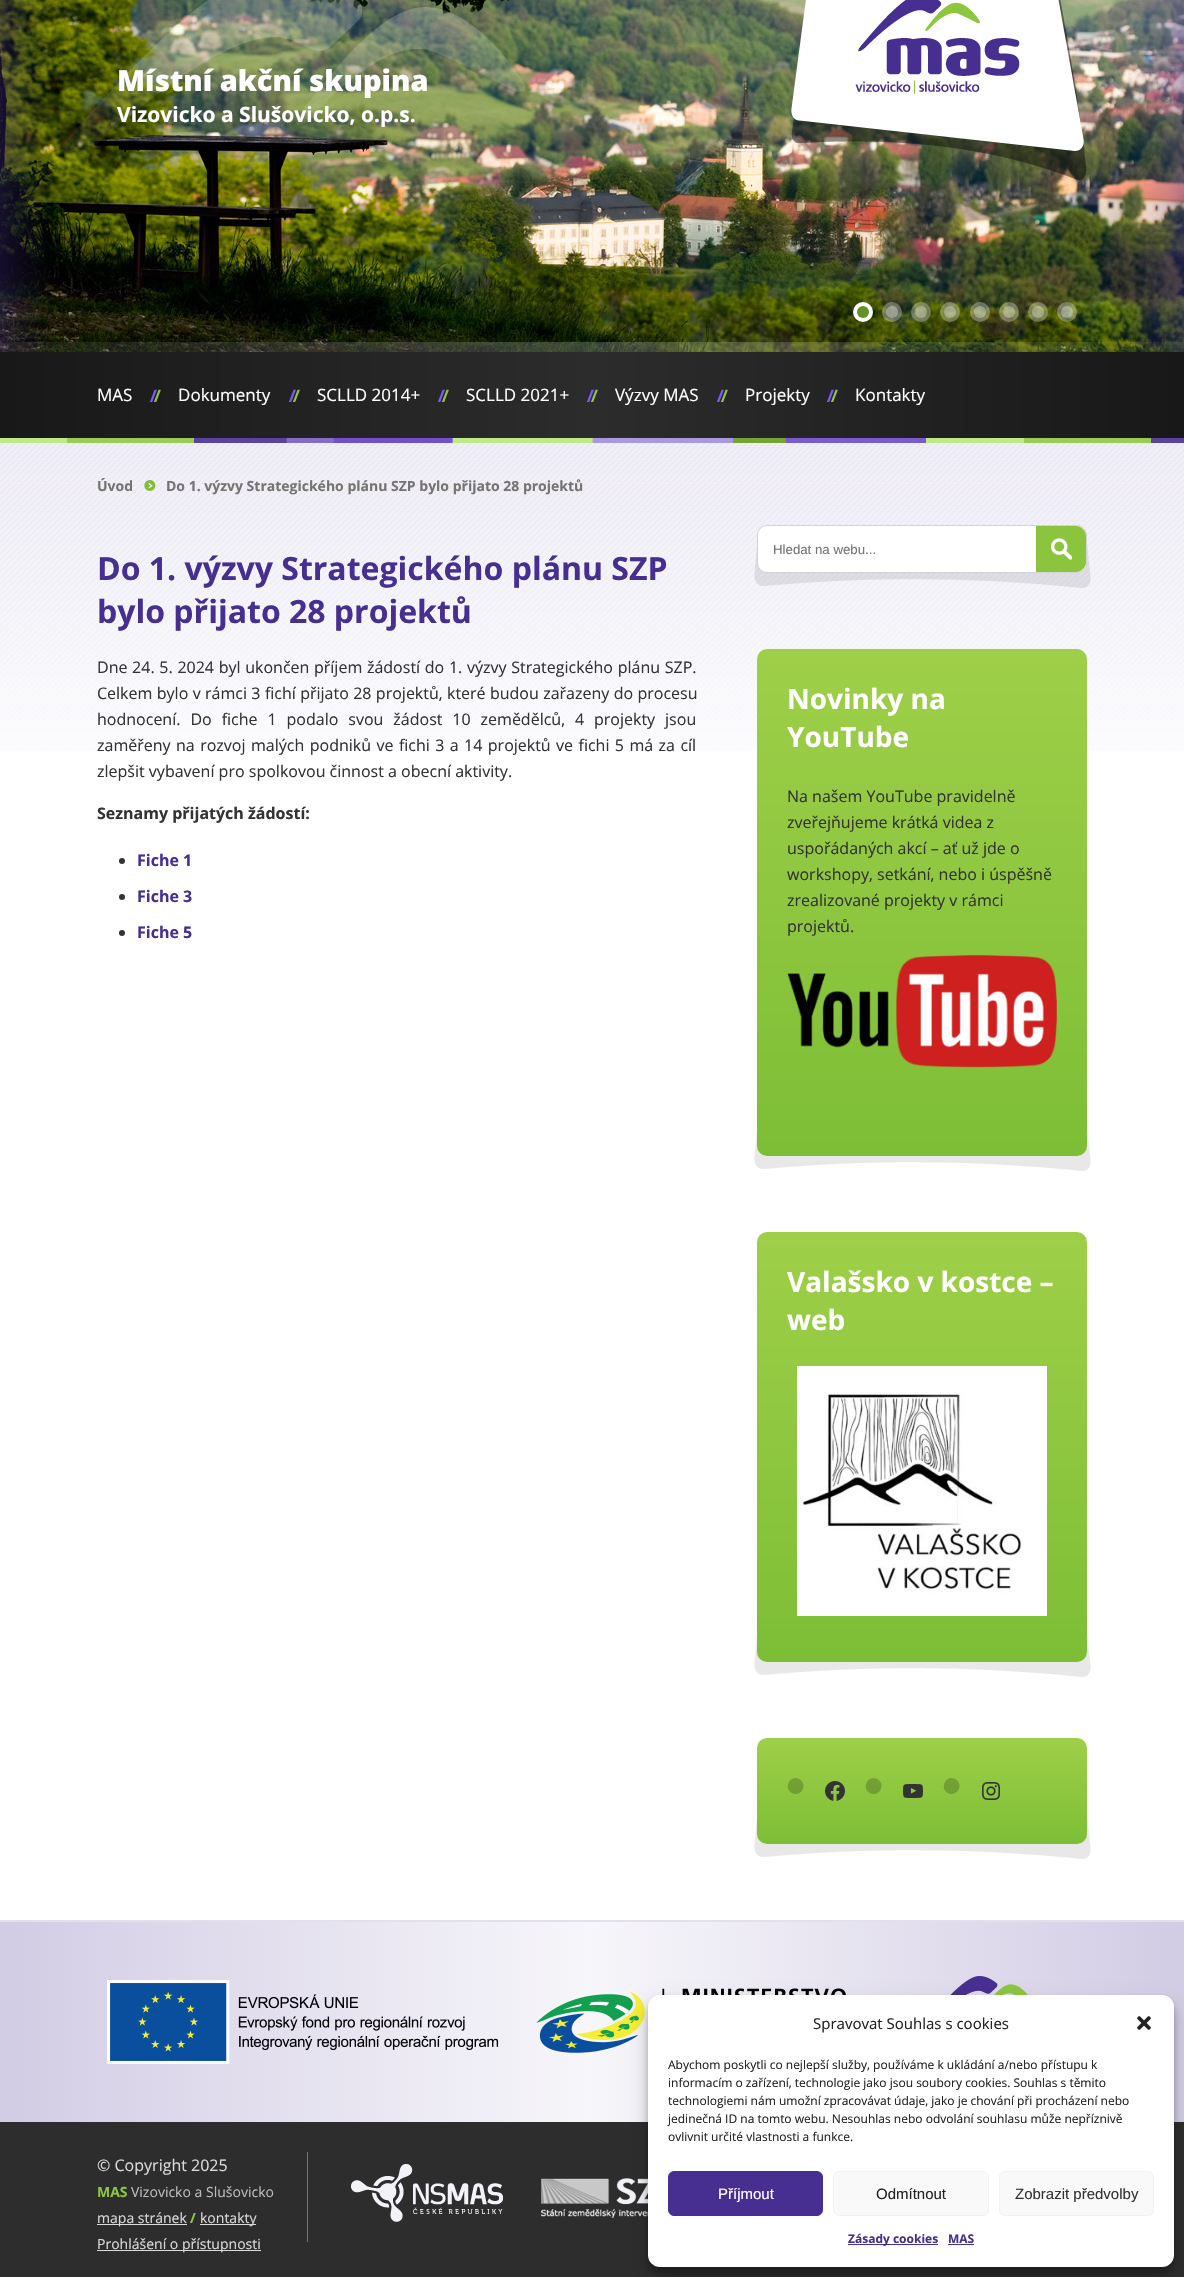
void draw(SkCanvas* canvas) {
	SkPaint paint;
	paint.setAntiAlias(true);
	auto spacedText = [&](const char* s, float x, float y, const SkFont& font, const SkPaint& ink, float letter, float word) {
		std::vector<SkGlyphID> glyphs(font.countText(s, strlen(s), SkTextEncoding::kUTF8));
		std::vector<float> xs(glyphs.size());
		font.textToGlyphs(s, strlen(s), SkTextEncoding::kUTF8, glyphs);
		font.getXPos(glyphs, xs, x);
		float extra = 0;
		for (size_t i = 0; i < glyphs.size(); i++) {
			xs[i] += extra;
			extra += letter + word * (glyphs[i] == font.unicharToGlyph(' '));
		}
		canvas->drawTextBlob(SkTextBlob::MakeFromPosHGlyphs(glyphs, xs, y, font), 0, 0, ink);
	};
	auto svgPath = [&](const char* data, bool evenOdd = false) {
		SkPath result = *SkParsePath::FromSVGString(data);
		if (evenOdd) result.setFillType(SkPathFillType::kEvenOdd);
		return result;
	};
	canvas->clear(0xffffffff);
	canvas->drawImageRect(SkImages::DeferredFromEncodedData(SkData::MakeFromFileName("img1.png")), SkRect::MakeXYWH(0, 0, 1184, 352), SkSamplingOptions());
	canvas->drawImageRect(SkImages::DeferredFromEncodedData(SkData::MakeFromFileName("img2.png")), SkRect::MakeXYWH(0, 0, 1184, 352), SkSamplingOptions());
	canvas->drawImageRect(SkImages::DeferredFromEncodedData(SkData::MakeFromFileName("img3.png")), SkRect::MakeXYWH(45, 0, 1042, 180), SkSamplingOptions());
	SkFont f1(fontMgr->matchFamilyStyle("Open Sans", SkFontStyle(800, SkFontStyle::kNormal_Width, SkFontStyle::kUpright_Slant)), 29);
	f1.setSubpixel(true);
	paint.setColor(0xffffffff);
	canvas->drawString("Místní akční skupina", 117, 91, f1, paint);
	SkFont f2(fontMgr->matchFamilyStyle("Open Sans", SkFontStyle::Bold()), 21);
	f2.setSubpixel(true);
	canvas->drawString("Vizovicko a Slušovicko, o.p.s.", 117, 122, f2, paint);
	canvas->drawCircle(863, 312, 10, paint);
	paint.setColor(0xff65902a);
	canvas->drawCircle(863, 312, 6, paint);
	paint.setColor(0x4dffffff);
	canvas->drawCircle(892, 312, 10, paint);
	canvas->drawCircle(892, 312, 6, paint);
	canvas->drawCircle(921, 312, 10, paint);
	canvas->drawCircle(921, 312, 6, paint);
	canvas->drawCircle(950, 312, 10, paint);
	canvas->drawCircle(950, 312, 6, paint);
	canvas->drawCircle(980, 312, 10, paint);
	canvas->drawCircle(980, 312, 6, paint);
	canvas->drawCircle(1009, 312, 10, paint);
	canvas->drawCircle(1009, 312, 6, paint);
	canvas->drawCircle(1038, 312, 10, paint);
	canvas->drawCircle(1038, 312, 6, paint);
	canvas->drawCircle(1067, 312, 10, paint);
	canvas->drawCircle(1067, 312, 6, paint);
	canvas->drawImageRect(SkImages::DeferredFromEncodedData(SkData::MakeFromFileName("img4.png")), SkRect::MakeXYWH(0, 342, 1184, 10), SkSamplingOptions());
	{
		const SkColor colors[] = {0xff181818, 0xff2c2c2c, 0xff181818};
		const float stops[] = {0, 0.5, 1};
		const SkPoint ends[] = {{0, 395}, {1184, 395}};
		paint.setShader(SkGradientShader::MakeLinear(ends, colors, stops, 3, SkTileMode::kClamp));
		paint.setAlpha(255);
	}
	canvas->drawRect(SkRect::MakeXYWH(0, 352, 1184, 86), paint);
	canvas->drawImageRect(SkImages::DeferredFromEncodedData(SkData::MakeFromFileName("img5.png")), SkRect::MakeXYWH(150, 389, 11, 13), SkSamplingOptions());
	SkFont f3(fontMgr->matchFamilyStyle("Open Sans", SkFontStyle::Normal()), 17);
	f3.setSubpixel(true);
	paint.setShader(nullptr);
	paint.setColor(0xffffffff);
	canvas->drawString("MAS", 97, 401, f3, paint);
	canvas->drawImageRect(SkImages::DeferredFromEncodedData(SkData::MakeFromFileName("img6.png")), SkRect::MakeXYWH(289, 389, 11, 13), SkSamplingOptions());
	canvas->drawString("Dokumenty", 178, 401, f3, paint);
	canvas->drawImageRect(SkImages::DeferredFromEncodedData(SkData::MakeFromFileName("img7.png")), SkRect::MakeXYWH(438, 389, 11, 13), SkSamplingOptions());
	canvas->drawString("SCLLD 2014+", 317, 401, f3, paint);
	canvas->drawImageRect(SkImages::DeferredFromEncodedData(SkData::MakeFromFileName("img8.png")), SkRect::MakeXYWH(587, 389, 11, 13), SkSamplingOptions());
	canvas->drawString("SCLLD 2021+", 466, 401, f3, paint);
	canvas->drawImageRect(SkImages::DeferredFromEncodedData(SkData::MakeFromFileName("img9.png")), SkRect::MakeXYWH(717, 389, 11, 13), SkSamplingOptions());
	canvas->drawString("Výzvy MAS", 615, 401, f3, paint);
	canvas->drawImageRect(SkImages::DeferredFromEncodedData(SkData::MakeFromFileName("img10.png")), SkRect::MakeXYWH(827, 389, 11, 13), SkSamplingOptions());
	canvas->drawString("Projekty", 745, 401, f3, paint);
	canvas->drawString("Kontakty", 855, 401, f3, paint);
	canvas->drawImageRect(SkImages::DeferredFromEncodedData(SkData::MakeFromFileName("img11.png")), SkRect::MakeXYWH(0, 438, 1184, 5), SkSamplingOptions());
	canvas->drawImageRect(SkImages::DeferredFromEncodedData(SkData::MakeFromFileName("img12.png")), SkRect::MakeXYWH(0, 443, 1184, 308), SkSamplingOptions());
	SkFont f4(fontMgr->matchFamilyStyle("Open Sans", SkFontStyle::Bold()), 14);
	f4.setSubpixel(true);
	paint.setColor(0xff747474);
	canvas->drawString("Úvod", 97, 491, f4, paint);
	canvas->drawImageRect(SkImages::DeferredFromEncodedData(SkData::MakeFromFileName("img13.png")), SkRect::MakeXYWH(144, 480, 12, 11), SkSamplingOptions());
	canvas->drawString("Do 1. výzvy Strategického plánu SZP bylo přijato 28 projektů", 166, 491, f4, paint);
	SkFont f5(fontMgr->matchFamilyStyle("Open Sans", SkFontStyle::Bold()), 32);
	f5.setSubpixel(true);
	paint.setColor(0xff472f91);
	canvas->drawString("Do 1. výzvy Strategického plánu SZP", 97, 580, f5, paint);
	canvas->drawString("bylo přijato 28 projektů", 97, 623, f5, paint);
	SkFont f6(fontMgr->matchFamilyStyle("Open Sans", SkFontStyle::Normal()), 16);
	f6.setSubpixel(true);
	paint.setColor(0xff333333);
	spacedText("Dne 24. 5. 2024 byl ukončen příjem žádostí do 1. výzvy Strategického plánu SZP.", 97, 673, f6, paint, 0, 0.5);
	spacedText("Celkem bylo v rámci 3 fichí přijato 28 projektů, které budou zařazeny do procesu", 97, 699, f6, paint, 0, 0.2);
	spacedText("hodnocení. Do fiche 1 podalo svou žádost 10 zemědělců, 4 projekty jsou", 97, 725, f6, paint, 0, 5.75);
	spacedText("zaměřeny na rozvoj malých podniků ve fichi 3 a 14 projektů ve fichi 5 má za cíl", 97, 751, f6, paint, 0, 1.25);
	canvas->drawString("zlepšit vybavení pro spolkovou činnost a obecní aktivity.", 97, 777, f6, paint);
	SkFont f7(fontMgr->matchFamilyStyle("Open Sans", SkFontStyle::Bold()), 16);
	f7.setSubpixel(true);
	canvas->drawString("Seznamy přijatých žádostí:", 97, 819, f7, paint);
	canvas->drawCircle(122, 861, 3, paint);
	paint.setColor(0xff472f91);
	canvas->drawString("Fiche 1", 137, 866, f7, paint);
	paint.setColor(0xff333333);
	canvas->drawCircle(122, 897, 3, paint);
	paint.setColor(0xff472f91);
	canvas->drawString("Fiche 3", 137, 902, f7, paint);
	paint.setColor(0xff333333);
	canvas->drawCircle(122, 933, 3, paint);
	paint.setColor(0xff472f91);
	canvas->drawString("Fiche 5", 137, 938, f7, paint);
	canvas->drawImageRect(SkImages::DeferredFromEncodedData(SkData::MakeFromFileName("img15.png")), SkRect::MakeXYWH(754, 545, 337, 43), SkSamplingOptions());
	paint.setColor(0xffffffff);
	canvas->drawRoundRect(SkRect::MakeXYWH(757.5, 525.5, 329, 47), 9.5, 9.5, paint);
	paint.setStroke(true);
	paint.setStrokeWidth(1);
	paint.setColor(0xffd3d1d9);
	canvas->drawRoundRect(SkRect::MakeXYWH(757.5, 525.5, 329, 47), 9.5, 9.5, paint);
	SkFont f8(fontMgr->matchFamilyStyle("Liberation Sans", SkFontStyle::Normal()), 13.25);
	f8.setSubpixel(true);
	paint.setStroke(false);
	paint.setColor(0xff747474);
	canvas->drawString("Hledat na webu...", 773, 554, f8, paint);
	paint.setColor(0xff8bc53e);
	canvas->drawPath(svgPath("M1036 526H1076C1081.5 526 1086 530.5 1086 536V562C1086 567.5 1081.5 572 1076 572H1036Z"), paint);
	canvas->drawImageRect(SkImages::DeferredFromEncodedData(SkData::MakeFromFileName("img14.png")), SkRect::MakeXYWH(1051, 538, 21, 22), SkSamplingOptions());
	canvas->drawImageRect(SkImages::DeferredFromEncodedData(SkData::MakeFromFileName("img17.png")), SkRect::MakeXYWH(754, 1128, 337, 43), SkSamplingOptions());
	{
		const SkColor colors[] = {0xff9fcf49, 0xff7dbe36};
		const float stops[] = {0, 1};
		const SkPoint ends[] = {{922, 649}, {922, 1156}};
		paint.setShader(SkGradientShader::MakeLinear(ends, colors, stops, 2, SkTileMode::kClamp));
		paint.setAlpha(255);
	}
	canvas->drawRoundRect(SkRect::MakeXYWH(757, 649, 330, 507), 10, 10, paint);
	SkFont f9(fontMgr->matchFamilyStyle("Open Sans", SkFontStyle::Bold()), 28);
	f9.setSubpixel(true);
	paint.setShader(nullptr);
	paint.setColor(0xffffffff);
	canvas->drawString("Novinky na", 787, 709, f9, paint);
	canvas->drawString("YouTube", 787, 747, f9, paint);
	paint.setColor(0xff333333);
	canvas->drawString("Na našem YouTube pravidelně", 787, 802, f6, paint);
	canvas->drawString("zveřejňujeme krátká videa z", 787, 828, f6, paint);
	canvas->drawString("uspořádaných akcí – ať už jde o", 787, 854, f6, paint);
	canvas->drawString("workshopy, setkání, nebo i úspěšně", 787, 880, f6, paint);
	canvas->drawString("zrealizované projekty v rámci", 787, 906, f6, paint);
	canvas->drawString("projektů.", 787, 932, f6, paint);
	canvas->drawImageRect(SkImages::DeferredFromEncodedData(SkData::MakeFromFileName("img16.png")), SkRect::MakeXYWH(787, 955, 270, 113), SkSamplingOptions());
	canvas->drawImageRect(SkImages::DeferredFromEncodedData(SkData::MakeFromFileName("img17.png")), SkRect::MakeXYWH(754, 1634, 337, 43), SkSamplingOptions());
	{
		const SkColor colors[] = {0xff9fcf49, 0xff7dbe36};
		const float stops[] = {0, 1};
		const SkPoint ends[] = {{922, 1232}, {922, 1662}};
		paint.setShader(SkGradientShader::MakeLinear(ends, colors, stops, 2, SkTileMode::kClamp));
		paint.setAlpha(255);
	}
	canvas->drawRoundRect(SkRect::MakeXYWH(757, 1232, 330, 430), 10, 10, paint);
	paint.setShader(nullptr);
	paint.setColor(0xffffffff);
	canvas->drawString("Valašsko v kostce –", 787, 1292, f9, paint);
	canvas->drawString("web", 787, 1330, f9, paint);
	canvas->drawImageRect(SkImages::DeferredFromEncodedData(SkData::MakeFromFileName("img18.png")), SkRect::MakeXYWH(797, 1366, 250, 250), SkSamplingOptions());
	canvas->drawImageRect(SkImages::DeferredFromEncodedData(SkData::MakeFromFileName("img17.png")), SkRect::MakeXYWH(754, 1816, 337, 43), SkSamplingOptions());
	{
		const SkColor colors[] = {0xff9fcf49, 0xff7dbe36};
		const float stops[] = {0, 1};
		const SkPoint ends[] = {{922, 1738}, {922, 1844}};
		paint.setShader(SkGradientShader::MakeLinear(ends, colors, stops, 2, SkTileMode::kClamp));
		paint.setAlpha(255);
	}
	canvas->drawRoundRect(SkRect::MakeXYWH(757, 1738, 330, 106), 10, 10, paint);
	canvas->drawImageRect(SkImages::DeferredFromEncodedData(SkData::MakeFromFileName("img19.png")), SkRect::MakeXYWH(787, 1778, 17, 16), SkSamplingOptions());
	canvas->drawImageRect(SkImages::DeferredFromEncodedData(SkData::MakeFromFileName("img20.png")), SkRect::MakeXYWH(825, 1781, 20, 20), SkSamplingOptions());
	canvas->drawImageRect(SkImages::DeferredFromEncodedData(SkData::MakeFromFileName("img19.png")), SkRect::MakeXYWH(865, 1778, 17, 16), SkSamplingOptions());
	canvas->drawImageRect(SkImages::DeferredFromEncodedData(SkData::MakeFromFileName("img21.png")), SkRect::MakeXYWH(903, 1784, 20, 14), SkSamplingOptions());
	canvas->drawImageRect(SkImages::DeferredFromEncodedData(SkData::MakeFromFileName("img19.png")), SkRect::MakeXYWH(943, 1778, 17, 16), SkSamplingOptions());
	canvas->drawImageRect(SkImages::DeferredFromEncodedData(SkData::MakeFromFileName("img22.png")), SkRect::MakeXYWH(982, 1782, 18, 18), SkSamplingOptions());
	canvas->drawImageRect(SkImages::DeferredFromEncodedData(SkData::MakeFromFileName("img23.png")), SkRect::MakeXYWH(0, 1922, 1184, 200), SkSamplingOptions());
	paint.setShader(nullptr);
	paint.setColor(0xffe3e0ec);
	canvas->drawRect(SkRect::MakeXYWH(0, 1920, 1184, 2), paint);
	paint.setColor(0xff2d2d2d);
	canvas->drawRect(SkRect::MakeXYWH(0, 2122, 1184, 155), paint);
	paint.setColor(0xffdbdbdb);
	canvas->drawString("© Copyright 2025", 97, 2171, f6, paint);
	paint.setColor(0xff8dc63f);
	canvas->drawString("MAS", 97, 2197, f4, paint);
	SkFont f10(fontMgr->matchFamilyStyle("Open Sans", SkFontStyle::Normal()), 14);
	f10.setSubpixel(true);
	paint.setColor(0xffbcbcbc);
	canvas->drawString("Vizovicko a Slušovicko", 131, 2197, f10, paint);
	paint.setColor(0xffdbdbdb);
	canvas->drawRect(SkRect::MakeXYWH(97, 2224, 90, 1), paint);
	canvas->drawString("mapa stránek", 97, 2223, f10, paint);
	paint.setColor(0xff8dc63f);
	canvas->drawString("/", 190, 2223, f4, paint);
	paint.setColor(0xffdbdbdb);
	canvas->drawRect(SkRect::MakeXYWH(200, 2224, 56, 1), paint);
	canvas->drawString("kontakty", 200, 2223, f10, paint);
	canvas->drawRect(SkRect::MakeXYWH(97, 2250, 164, 1), paint);
	canvas->drawString("Prohlášení o přístupnosti", 97, 2249, f10, paint);
	paint.setColor(0xff757575);
	canvas->drawRect(SkRect::MakeXYWH(307, 2152, 1, 90), paint);
	canvas->drawImageRect(SkImages::DeferredFromEncodedData(SkData::MakeFromFileName("img24.png")), SkRect::MakeXYWH(351, 2164, 152, 58), SkSamplingOptions());
	canvas->drawImageRect(SkImages::DeferredFromEncodedData(SkData::MakeFromFileName("img25.png")), SkRect::MakeXYWH(541, 2178, 107, 40), SkSamplingOptions());
	paint.setColor(0x3b000000);
	paint.setMaskFilter(SkMaskFilter::MakeBlur(kNormal_SkBlurStyle, 3));
	canvas->drawRoundRect(SkRect::MakeXYWH(648, 2001, 526, 272), 12, 12, paint);
	paint.setMaskFilter(nullptr);
	paint.setColor(0x30000000);
	paint.setMaskFilter(SkMaskFilter::MakeBlur(kNormal_SkBlurStyle, 10));
	canvas->drawRoundRect(SkRect::MakeXYWH(648, 2005, 526, 272), 12, 12, paint);
	paint.setMaskFilter(nullptr);
	paint.setColor(0xffffffff);
	canvas->drawRoundRect(SkRect::MakeXYWH(648, 1995, 526, 272), 12, 12, paint);
	SkFont f11(fontMgr->matchFamilyStyle("Open Sans", SkFontStyle::Normal()), 15);
	f11.setSubpixel(true);
	paint.setColor(0xff222222);
	canvas->drawString("Spravovat Souhlas s cookies", 813, 2029, f11, paint);
	canvas->drawImageRect(SkImages::DeferredFromEncodedData(SkData::MakeFromFileName("img26.png")), SkRect::MakeXYWH(1137, 2016, 14, 14), SkSamplingOptions());
	SkFont f12(fontMgr->matchFamilyStyle("Open Sans", SkFontStyle::Normal()), 12);
	f12.setSubpixel(true);
	canvas->drawString("Abychom poskytli co nejlepší služby, používáme k ukládání a/nebo přístupu k", 668, 2069, f12, paint);
	canvas->drawString("informacím o zařízení, technologie jako jsou soubory cookies. Souhlas s těmito", 668, 2087, f12, paint);
	canvas->drawString("technologiemi nám umožní zpracovávat údaje, jako je chování při procházení nebo", 668, 2105, f12, paint);
	canvas->drawString("jedinečná ID na tomto webu. Nesouhlas nebo odvolání souhlasu může nepříznivě", 668, 2123, f12, paint);
	canvas->drawString("ovlivnit určité vlastnosti a funkce.", 668, 2141, f12, paint);
	paint.setColor(0xff472f91);
	canvas->drawRoundRect(SkRect::MakeXYWH(668.5, 2171.5, 154, 44), 5.5, 5.5, paint);
	paint.setStroke(true);
	canvas->drawRoundRect(SkRect::MakeXYWH(668.5, 2171.5, 154, 44), 5.5, 5.5, paint);
	SkFont f13(fontMgr->matchFamilyStyle("Liberation Sans", SkFontStyle::Normal()), 15);
	f13.setSubpixel(true);
	paint.setStroke(false);
	paint.setColor(0xffffffff);
	canvas->drawString("Příjmout", 718, 2199, f13, paint);
	paint.setColor(0xfff9f9f9);
	canvas->drawRoundRect(SkRect::MakeXYWH(833.5, 2171.5, 155, 44), 5.5, 5.5, paint);
	paint.setStroke(true);
	paint.setColor(0xfff2f2f2);
	canvas->drawRoundRect(SkRect::MakeXYWH(833.5, 2171.5, 155, 44), 5.5, 5.5, paint);
	paint.setStroke(false);
	paint.setColor(0xff222222);
	canvas->drawString("Odmítnout", 876, 2199, f13, paint);
	paint.setColor(0xfff9f9f9);
	canvas->drawRoundRect(SkRect::MakeXYWH(999.5, 2171.5, 154, 44), 5.5, 5.5, paint);
	paint.setStroke(true);
	paint.setColor(0xfff2f2f2);
	canvas->drawRoundRect(SkRect::MakeXYWH(999.5, 2171.5, 154, 44), 5.5, 5.5, paint);
	paint.setStroke(false);
	paint.setColor(0xff333333);
	canvas->drawString("Zobrazit předvolby", 1015, 2199, f13, paint);
	paint.setColor(0xff472f91);
	canvas->drawRect(SkRect::MakeXYWH(848, 2244, 90, 1), paint);
	SkFont f14(fontMgr->matchFamilyStyle("Open Sans", SkFontStyle::Bold()), 12);
	f14.setSubpixel(true);
	canvas->drawString("Zásady cookies", 848, 2243, f14, paint);
	canvas->drawString("MAS", 948, 2243, f14, paint);
	canvas->drawRect(SkRect::MakeXYWH(948, 2244, 26, 1), paint);
}
